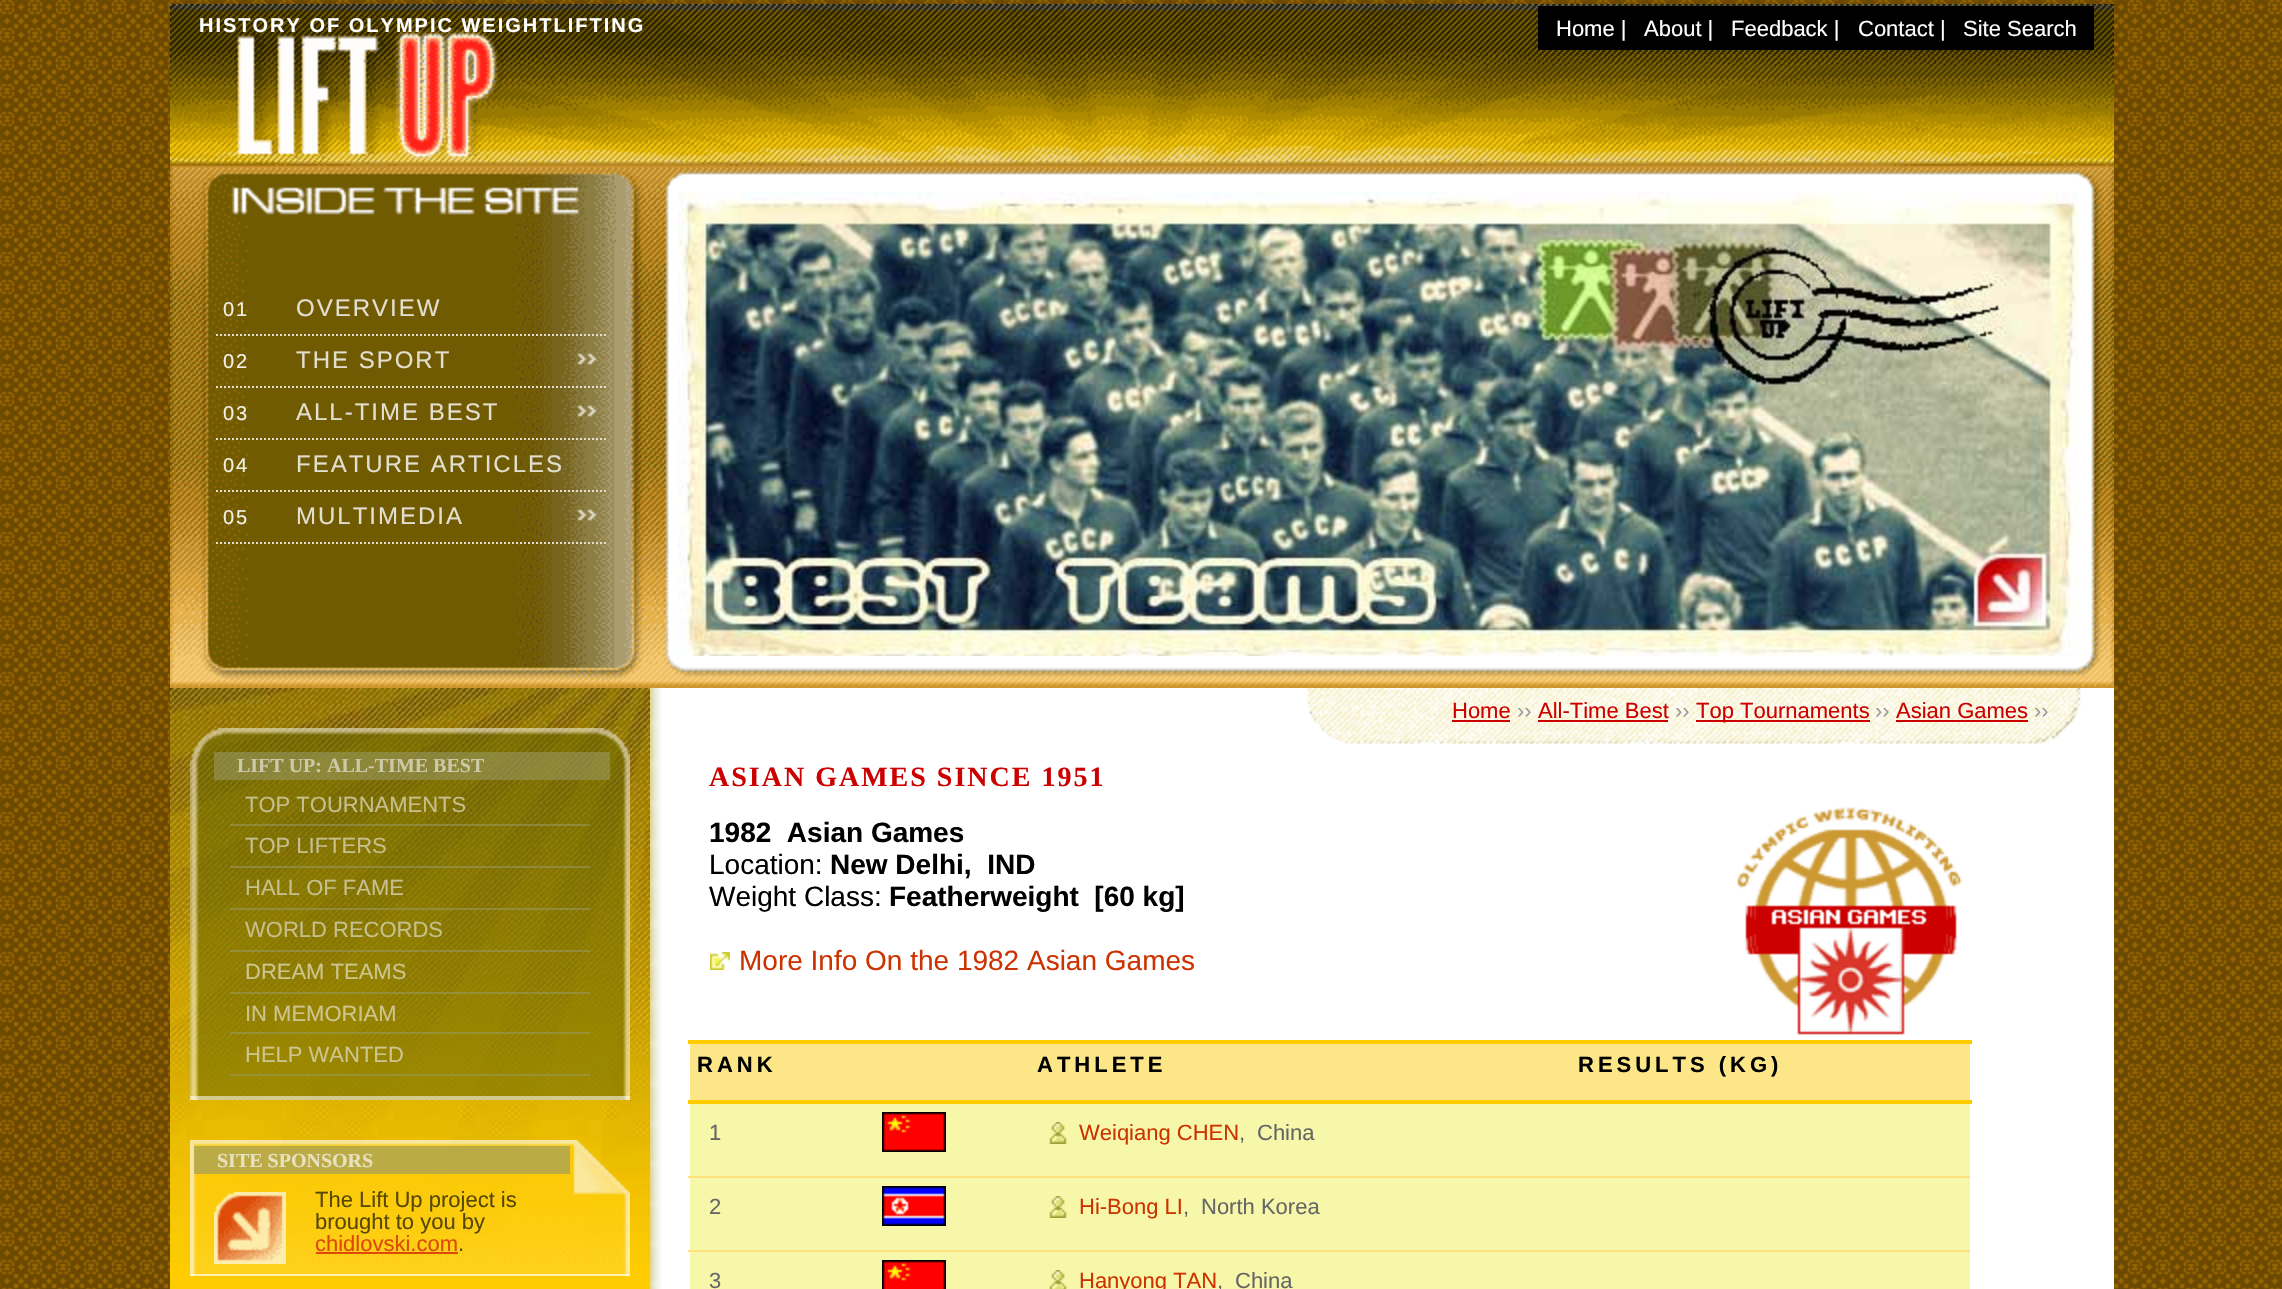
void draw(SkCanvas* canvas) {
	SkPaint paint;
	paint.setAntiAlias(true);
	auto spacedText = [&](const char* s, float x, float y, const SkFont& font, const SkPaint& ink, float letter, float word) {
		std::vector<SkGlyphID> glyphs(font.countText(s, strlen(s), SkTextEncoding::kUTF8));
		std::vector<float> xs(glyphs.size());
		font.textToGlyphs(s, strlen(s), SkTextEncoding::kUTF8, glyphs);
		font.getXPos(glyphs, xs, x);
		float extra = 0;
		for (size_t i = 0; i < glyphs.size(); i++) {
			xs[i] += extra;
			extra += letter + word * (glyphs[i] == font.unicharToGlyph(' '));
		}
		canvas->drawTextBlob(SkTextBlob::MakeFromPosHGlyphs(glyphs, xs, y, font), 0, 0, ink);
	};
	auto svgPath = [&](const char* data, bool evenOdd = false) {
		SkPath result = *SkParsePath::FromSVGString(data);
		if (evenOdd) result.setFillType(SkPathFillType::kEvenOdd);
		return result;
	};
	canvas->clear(0xffffffff);
	canvas->drawImageRect(SkImages::DeferredFromEncodedData(SkData::MakeFromFileName("img1.png")), SkRect::MakeXYWH(0, 0, 2282, 1289), SkSamplingOptions());
	paint.setColor(0xffffffff);
	canvas->drawRect(SkRect::MakeXYWH(662, 688, 1452, 601), paint);
	canvas->drawImageRect(SkImages::DeferredFromEncodedData(SkData::MakeFromFileName("img2.png")), SkRect::MakeXYWH(650, 688, 12, 601), SkSamplingOptions());
	canvas->drawImageRect(SkImages::DeferredFromEncodedData(SkData::MakeFromFileName("img3.png")), SkRect::MakeXYWH(170, 4, 1944, 160), SkSamplingOptions());
	SkFont f1(fontMgr->matchFamilyStyle("Liberation Sans", SkFontStyle::Bold()), 20);
	f1.setSubpixel(true);
	spacedText("HISTORY OF OLYMPIC WEIGHTLIFTING", 199, 32, f1, paint, 2, 0);
	paint.setColor(0xff000000);
	canvas->drawRect(SkRect::MakeXYWH(1538, 6, 556, 44), paint);
	SkFont f2(fontMgr->matchFamilyStyle("Liberation Sans", SkFontStyle::Normal()), 22);
	f2.setSubpixel(true);
	paint.setColor(0xffffffff);
	canvas->drawString("Home |", 1556, 36, f2, paint);
	canvas->drawString("About |", 1644, 36, f2, paint);
	canvas->drawString("Feedback |", 1731, 36, f2, paint);
	canvas->drawString("Contact |", 1858, 36, f2, paint);
	canvas->drawString("Site Search", 1963, 36, f2, paint);
	canvas->drawImageRect(SkImages::DeferredFromEncodedData(SkData::MakeFromFileName("img4.png")), SkRect::MakeXYWH(170, 164, 1944, 524), SkSamplingOptions());
	paint.setStroke(true);
	paint.setStrokeWidth(2);
	paint.setColor(0xffe2dfcf);
	paint.setPathEffect(SkDashPathEffect::Make({{2, 2}}, 0));
	canvas->drawPath(svgPath("M216 335H606"), paint);
	paint.setPathEffect(nullptr);
	SkFont f3(fontMgr->matchFamilyStyle("Liberation Sans", SkFontStyle::Normal()), 20);
	f3.setSubpixel(true);
	paint.setStroke(false);
	paint.setColor(0xfff3f1e6);
	spacedText("01", 223, 316, f3, paint, 2, 0);
	SkFont f4(fontMgr->matchFamilyStyle("Liberation Sans", SkFontStyle::Normal()), 24);
	f4.setSubpixel(true);
	paint.setColor(0xffe2dfcf);
	spacedText("OVERVIEW", 296, 316, f4, paint, 2, 0);
	canvas->drawImageRect(SkImages::DeferredFromEncodedData(SkData::MakeFromFileName("img5.png")), SkRect::MakeXYWH(577, 353, 20, 12), SkSamplingOptions());
	paint.setStroke(true);
	paint.setPathEffect(SkDashPathEffect::Make({{2, 2}}, 0));
	canvas->drawPath(svgPath("M216 387H606"), paint);
	paint.setPathEffect(nullptr);
	paint.setStroke(false);
	paint.setColor(0xfff3f1e6);
	spacedText("02", 223, 368, f3, paint, 2, 0);
	paint.setColor(0xffe2dfcf);
	spacedText("THE SPORT", 296, 368, f4, paint, 2, 0);
	canvas->drawImageRect(SkImages::DeferredFromEncodedData(SkData::MakeFromFileName("img6.png")), SkRect::MakeXYWH(577, 405, 20, 12), SkSamplingOptions());
	paint.setStroke(true);
	paint.setPathEffect(SkDashPathEffect::Make({{2, 2}}, 0));
	canvas->drawPath(svgPath("M216 439H606"), paint);
	paint.setPathEffect(nullptr);
	paint.setStroke(false);
	paint.setColor(0xfff3f1e6);
	spacedText("03", 223, 420, f3, paint, 2, 0);
	paint.setColor(0xffe2dfcf);
	spacedText("ALL-TIME BEST", 296, 420, f4, paint, 2, 0);
	paint.setStroke(true);
	paint.setPathEffect(SkDashPathEffect::Make({{2, 2}}, 0));
	canvas->drawPath(svgPath("M216 491H606"), paint);
	paint.setPathEffect(nullptr);
	paint.setStroke(false);
	paint.setColor(0xfff3f1e6);
	spacedText("04", 223, 472, f3, paint, 2, 0);
	paint.setColor(0xffe2dfcf);
	spacedText("FEATURE ARTICLES", 296, 472, f4, paint, 2, 0);
	canvas->drawImageRect(SkImages::DeferredFromEncodedData(SkData::MakeFromFileName("img7.png")), SkRect::MakeXYWH(577, 509, 20, 12), SkSamplingOptions());
	paint.setStroke(true);
	paint.setPathEffect(SkDashPathEffect::Make({{2, 2}}, 0));
	canvas->drawPath(svgPath("M216 543H606"), paint);
	paint.setPathEffect(nullptr);
	paint.setStroke(false);
	paint.setColor(0xfff3f1e6);
	spacedText("05", 223, 524, f3, paint, 2, 0);
	paint.setColor(0xffe2dfcf);
	spacedText("MULTIMEDIA", 296, 524, f4, paint, 2, 0);
	canvas->drawImageRect(SkImages::DeferredFromEncodedData(SkData::MakeFromFileName("img8.png")), SkRect::MakeXYWH(678, 192, 1400, 464), SkSamplingOptions());
	paint.setColor(0xffffcc00);
	canvas->drawRect(SkRect::MakeXYWH(170, 1263, 480, 26), paint);
	canvas->drawImageRect(SkImages::DeferredFromEncodedData(SkData::MakeFromFileName("img9.png")), SkRect::MakeXYWH(170, 688, 480, 575), SkSamplingOptions());
	canvas->drawImageRect(SkImages::DeferredFromEncodedData(SkData::MakeFromFileName("img10.png")), SkRect::MakeXYWH(190, 728, 440, 372), SkSamplingOptions());
	paint.setColor(0x8cffffff);
	canvas->drawRect(SkRect::MakeXYWH(190, 1096, 440, 4), paint);
	paint.setColor(0x8c999966);
	canvas->drawRect(SkRect::MakeXYWH(214, 752, 396, 28), paint);
	SkFont f5(fontMgr->matchFamilyStyle("Liberation Serif", SkFontStyle::Bold()), 20);
	f5.setSubpixel(true);
	paint.setColor(0xffcbc9a7);
	canvas->drawString("LIFT UP: ALL-TIME BEST", 237, 772, f5, paint);
	paint.setColor(0x8c999966);
	canvas->drawRect(SkRect::MakeXYWH(230, 824, 360, 2), paint);
	paint.setColor(0xffc6bf8e);
	canvas->drawString("TOP TOURNAMENTS", 245, 812, f2, paint);
	paint.setColor(0x8c999966);
	canvas->drawRect(SkRect::MakeXYWH(230, 866, 360, 2), paint);
	paint.setColor(0xffc6bf8e);
	canvas->drawString("TOP LIFTERS", 245, 853, f2, paint);
	paint.setColor(0x8c999966);
	canvas->drawRect(SkRect::MakeXYWH(230, 908, 360, 2), paint);
	paint.setColor(0xffc6bf8e);
	canvas->drawString("HALL OF FAME", 245, 895, f2, paint);
	paint.setColor(0x8c999966);
	canvas->drawRect(SkRect::MakeXYWH(230, 950, 360, 2), paint);
	paint.setColor(0xffc6bf8e);
	canvas->drawString("WORLD RECORDS", 245, 937, f2, paint);
	paint.setColor(0x8c999966);
	canvas->drawRect(SkRect::MakeXYWH(230, 992, 360, 2), paint);
	paint.setColor(0xffcdc58e);
	canvas->drawString("DREAM TEAMS", 245, 979, f2, paint);
	paint.setColor(0x8c999966);
	canvas->drawRect(SkRect::MakeXYWH(230, 1032, 360, 2), paint);
	paint.setColor(0xffcdc58e);
	canvas->drawString("IN MEMORIAM", 245, 1021, f2, paint);
	paint.setColor(0x8c999966);
	canvas->drawRect(SkRect::MakeXYWH(230, 1074, 360, 2), paint);
	paint.setColor(0xffcdc58e);
	canvas->drawString("HELP WANTED", 245, 1062, f2, paint);
	canvas->drawImageRect(SkImages::DeferredFromEncodedData(SkData::MakeFromFileName("img11.png")), SkRect::MakeXYWH(190, 1140, 440, 136), SkSamplingOptions());
	paint.setColor(0xa6ffffff);
	canvas->drawRect(SkRect::MakeXYWH(190, 1274, 440, 2), paint);
	paint.setColor(0xa6999966);
	canvas->drawRect(SkRect::MakeXYWH(194, 1146, 376, 28), paint);
	paint.setColor(0xffe7e1be);
	canvas->drawString("SITE SPONSORS", 217, 1167, f5, paint);
	canvas->drawImageRect(SkImages::DeferredFromEncodedData(SkData::MakeFromFileName("img12.png")), SkRect::MakeXYWH(214, 1192, 72, 72), SkSamplingOptions());
	paint.setColor(0xff584703);
	canvas->drawString("The Lift Up project is", 315, 1207, f2, paint);
	canvas->drawString("brought to you by", 315, 1229, f2, paint);
	paint.setColor(0xffdd4807);
	canvas->drawString("chidlovski.com", 315, 1251, f2, paint);
	paint.setColor(0xa6cc0000);
	canvas->drawRect(SkRect::MakeXYWH(316, 1252, 142, 2), paint);
	paint.setColor(0xff594909);
	canvas->drawString(".", 458, 1251, f2, paint);
	canvas->drawImageRect(SkImages::DeferredFromEncodedData(SkData::MakeFromFileName("img13.png")), SkRect::MakeXYWH(1307, 688, 774, 56), SkSamplingOptions());
	paint.setColor(0xffcc0000);
	canvas->drawString("Home", 1452, 718, f2, paint);
	canvas->drawRect(SkRect::MakeXYWH(1452, 720, 58, 2), paint);
	paint.setColor(0xff999999);
	canvas->drawString("››", 1517, 718, f2, paint);
	paint.setColor(0xffcc0000);
	canvas->drawString("All-Time Best", 1538, 718, f2, paint);
	canvas->drawRect(SkRect::MakeXYWH(1538, 720, 130, 2), paint);
	paint.setColor(0xff999999);
	canvas->drawString("››", 1675, 718, f2, paint);
	paint.setColor(0xffcc0000);
	canvas->drawRect(SkRect::MakeXYWH(1696, 720, 174, 2), paint);
	canvas->drawString("Top Tournaments", 1696, 718, f2, paint);
	paint.setColor(0xff999999);
	canvas->drawString("››", 1875, 718, f2, paint);
	paint.setColor(0xffcc0000);
	canvas->drawString("Asian Games", 1896, 718, f2, paint);
	canvas->drawRect(SkRect::MakeXYWH(1896, 720, 132, 2), paint);
	paint.setColor(0xff999999);
	canvas->drawString("››", 2034, 718, f2, paint);
	SkFont f6(fontMgr->matchFamilyStyle("Liberation Serif", SkFontStyle::Bold()), 28);
	f6.setSubpixel(true);
	paint.setColor(0xffcc0000);
	spacedText("ASIAN GAMES SINCE 1951", 709, 786, f6, paint, 2, 0);
	SkFont f7(fontMgr->matchFamilyStyle("Liberation Sans", SkFontStyle::Bold()), 28);
	f7.setSubpixel(true);
	paint.setColor(0xff000000);
	canvas->drawString("1982  Asian Games", 709, 842, f7, paint);
	SkFont f8(fontMgr->matchFamilyStyle("Liberation Sans", SkFontStyle::Normal()), 28);
	f8.setSubpixel(true);
	canvas->drawString("Location:", 709, 874, f8, paint);
	canvas->drawString("New Delhi,  IND", 830, 874, f7, paint);
	canvas->drawString("Weight Class:", 709, 906, f8, paint);
	canvas->drawString("Featherweight  [60 kg]", 889, 906, f7, paint);
	canvas->drawImageRect(SkImages::DeferredFromEncodedData(SkData::MakeFromFileName("img14.png")), SkRect::MakeXYWH(710, 952, 20, 18), SkSamplingOptions());
	paint.setColor(0xffcc3300);
	canvas->drawString("More Info On the 1982 Asian Games", 739, 970, f8, paint);
	canvas->drawImageRect(SkImages::DeferredFromEncodedData(SkData::MakeFromFileName("img15.png")), SkRect::MakeXYWH(1737, 807, 226, 228), SkSamplingOptions());
	paint.setColor(0xfffde687);
	canvas->drawRect(SkRect::MakeXYWH(690, 1044, 1280, 56), paint);
	SkFont f9(fontMgr->matchFamilyStyle("Liberation Sans", SkFontStyle::Bold()), 22);
	f9.setSubpixel(true);
	paint.setColor(0xff000000);
	spacedText("RANK", 697, 1072, f9, paint, 4, 0);
	spacedText("ATHLETE", 1037, 1072, f9, paint, 4, 0);
	paint.setColor(0xffffcc00);
	canvas->drawRect(SkRect::MakeXYWH(688, 1040, 1284, 4), paint);
	canvas->drawRect(SkRect::MakeXYWH(688, 1100, 1284, 4), paint);
	paint.setColor(0xff000000);
	spacedText("RESULTS (KG)", 1578, 1072, f9, paint, 4, 0);
	paint.setColor(0xfff7f7a9);
	canvas->drawRect(SkRect::MakeXYWH(690, 1104, 1280, 72), paint);
	paint.setColor(0xff666666);
	canvas->drawString("1", 709, 1140, f2, paint);
	canvas->drawImageRect(SkImages::DeferredFromEncodedData(SkData::MakeFromFileName("img16.png")), SkRect::MakeXYWH(882, 1112, 64, 40), SkSamplingOptions());
	canvas->drawImageRect(SkImages::DeferredFromEncodedData(SkData::MakeFromFileName("img17.png")), SkRect::MakeXYWH(1049, 1122, 18, 22), SkSamplingOptions());
	paint.setColor(0xffcc3300);
	canvas->drawString("Weiqiang CHEN", 1079, 1140, f2, paint);
	paint.setColor(0xff666666);
	canvas->drawString(",", 1239, 1140, f2, paint);
	canvas->drawString("China", 1257, 1140, f2, paint);
	paint.setColor(0xffffe07c);
	canvas->drawRect(SkRect::MakeXYWH(688, 1176, 1282, 2), paint);
	paint.setColor(0xfff7f7a9);
	canvas->drawRect(SkRect::MakeXYWH(690, 1178, 1280, 72), paint);
	paint.setColor(0xff666666);
	canvas->drawString("2", 709, 1214, f2, paint);
	canvas->drawImageRect(SkImages::DeferredFromEncodedData(SkData::MakeFromFileName("img18.png")), SkRect::MakeXYWH(882, 1186, 64, 40), SkSamplingOptions());
	canvas->drawImageRect(SkImages::DeferredFromEncodedData(SkData::MakeFromFileName("img17.png")), SkRect::MakeXYWH(1049, 1196, 18, 22), SkSamplingOptions());
	paint.setColor(0xffcc3300);
	canvas->drawString("Hi-Bong LI", 1079, 1214, f2, paint);
	paint.setColor(0xff666666);
	canvas->drawString(",", 1183, 1214, f2, paint);
	canvas->drawString("North Korea", 1201, 1214, f2, paint);
	paint.setColor(0xffffe07c);
	canvas->drawRect(SkRect::MakeXYWH(688, 1250, 1282, 2), paint);
	paint.setColor(0xfff7f7a9);
	canvas->drawRect(SkRect::MakeXYWH(690, 1252, 1280, 37), paint);
	paint.setColor(0xff666666);
	canvas->drawString("3", 709, 1288, f2, paint);
	canvas->drawImageRect(SkImages::DeferredFromEncodedData(SkData::MakeFromFileName("img19.png")), SkRect::MakeXYWH(882, 1260, 64, 29), SkSamplingOptions());
	canvas->drawImageRect(SkImages::DeferredFromEncodedData(SkData::MakeFromFileName("img20.png")), SkRect::MakeXYWH(1049, 1270, 18, 19), SkSamplingOptions());
	paint.setColor(0xffcc3300);
	canvas->drawString("Hanyong TAN", 1079, 1288, f2, paint);
	paint.setColor(0xff666666);
	canvas->drawString(",", 1217, 1288, f2, paint);
	canvas->drawString("China", 1235, 1288, f2, paint);
}
